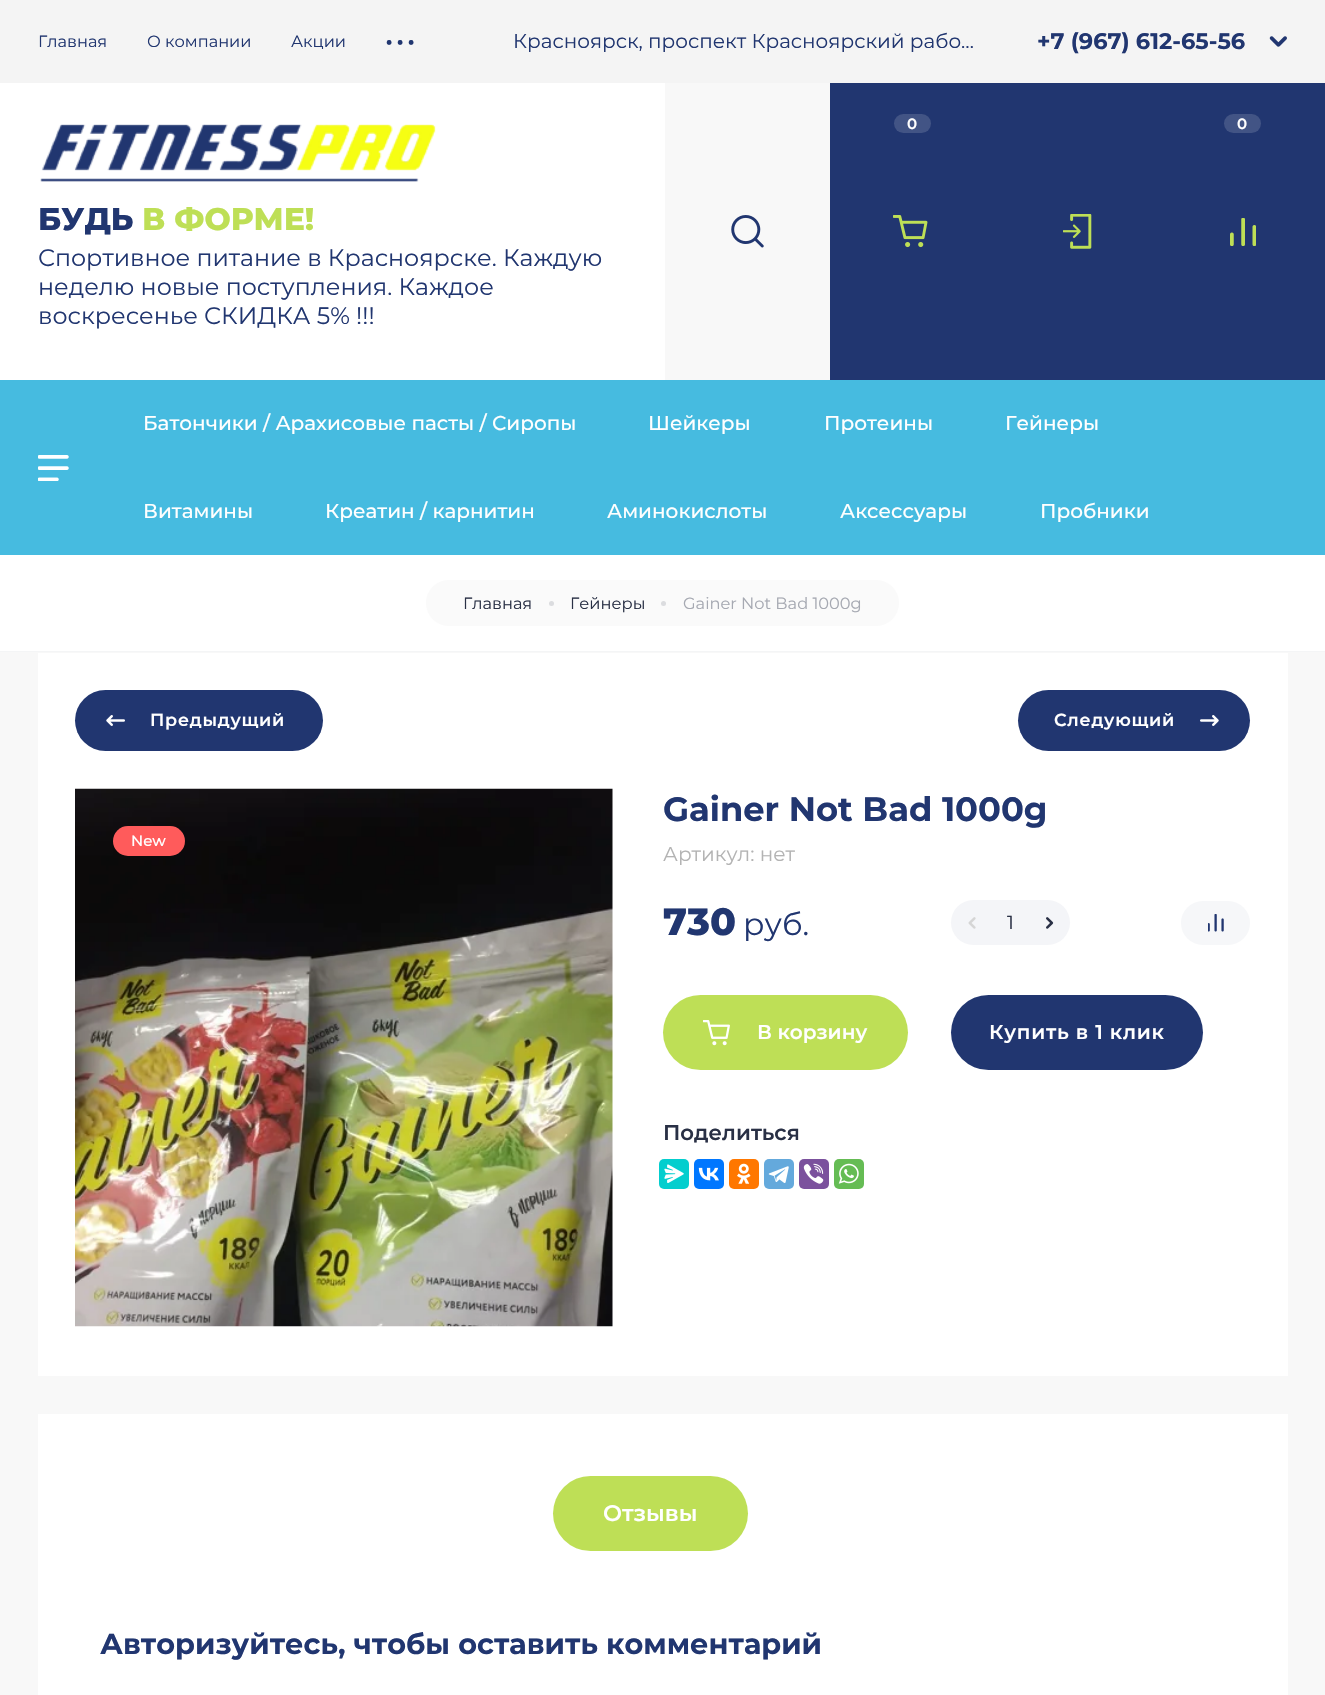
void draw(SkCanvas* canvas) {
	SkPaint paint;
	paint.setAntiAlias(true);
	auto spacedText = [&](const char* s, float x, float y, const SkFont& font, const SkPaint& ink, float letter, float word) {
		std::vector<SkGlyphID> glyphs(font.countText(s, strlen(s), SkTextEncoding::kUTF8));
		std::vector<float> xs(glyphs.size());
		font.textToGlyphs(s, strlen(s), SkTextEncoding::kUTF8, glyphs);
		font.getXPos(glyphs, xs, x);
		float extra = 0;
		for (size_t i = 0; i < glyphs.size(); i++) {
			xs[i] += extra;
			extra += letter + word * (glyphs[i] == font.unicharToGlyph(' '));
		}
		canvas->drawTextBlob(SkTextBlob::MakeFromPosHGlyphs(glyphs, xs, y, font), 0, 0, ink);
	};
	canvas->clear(0xfff8f8f8);
	paint.setColor(0xffffffff);
	canvas->drawRect(SkRect::MakeXYWH(0, 83, 665, 297), paint);
	paint.setColor(0xfff4f4f4);
	canvas->drawRect(SkRect::MakeXYWH(0, 0, 1325, 83), paint);
	SkFont f1(fontMgr->matchFamilyStyle("Montserrat", SkFontStyle::Normal()), 16.25);
	f1.setSubpixel(true);
	paint.setColor(0xff213670);
	canvas->drawString("Главная", 38, 47, f1, paint);
	canvas->drawString("О компании", 147, 47, f1, paint);
	canvas->drawString("Акции", 291, 47, f1, paint);
	SkFont f2(fontMgr->matchFamilyStyle("Montserrat", SkFontStyle(800, SkFontStyle::kNormal_Width, SkFontStyle::kUpright_Slant)), 16.25);
	f2.setSubpixel(true);
	canvas->drawString("• • •", 386, 47, f2, paint);
	SkFont f3(fontMgr->matchFamilyStyle("Montserrat", SkFontStyle::Normal()), 20);
	f3.setSubpixel(true);
	canvas->drawString("Красноярск, проспект Красноярский рабо…", 513, 48, f3, paint);
	SkFont f4(fontMgr->matchFamilyStyle("Montserrat", SkFontStyle::Bold()), 22.5);
	f4.setSubpixel(true);
	canvas->drawString("+7 (967) 612-65-56", 1037, 49, f4, paint);
	canvas->drawImageRect(SkImages::DeferredFromEncodedData(SkData::MakeFromFileName("img1.png")), SkRect::MakeXYWH(1269, 36, 18, 11), SkSamplingOptions());
	canvas->drawRect(SkRect::MakeXYWH(830, 83, 495, 297), paint);
	canvas->drawImageRect(SkImages::DeferredFromEncodedData(SkData::MakeFromFileName("img2.png")), SkRect::MakeXYWH(893, 215, 35, 33), SkSamplingOptions());
	paint.setColor(0xff425485);
	canvas->drawRoundRect(SkRect::MakeXYWH(894, 114, 37, 19), 9.5, 9.5, paint);
	SkFont f5(fontMgr->matchFamilyStyle("Montserrat", SkFontStyle(600, SkFontStyle::kNormal_Width, SkFontStyle::kUpright_Slant)), 15);
	f5.setSubpixel(true);
	paint.setColor(0xffffffff);
	canvas->drawString("0", 907, 129, f5, paint);
	canvas->drawImageRect(SkImages::DeferredFromEncodedData(SkData::MakeFromFileName("img3.png")), SkRect::MakeXYWH(1230, 218, 26, 28), SkSamplingOptions());
	paint.setColor(0xff425485);
	canvas->drawRoundRect(SkRect::MakeXYWH(1224, 114, 37, 19), 9.5, 9.5, paint);
	paint.setColor(0xffffffff);
	canvas->drawString("0", 1237, 129, f5, paint);
	canvas->drawImageRect(SkImages::DeferredFromEncodedData(SkData::MakeFromFileName("img4.png")), SkRect::MakeXYWH(1063, 214, 29, 35), SkSamplingOptions());
	canvas->drawImageRect(SkImages::DeferredFromEncodedData(SkData::MakeFromFileName("img5.png")), SkRect::MakeXYWH(731, 215, 33, 33), SkSamplingOptions());
	canvas->drawImageRect(SkImages::DeferredFromEncodedData(SkData::MakeFromFileName("img6.png")), SkRect::MakeXYWH(40, 124, 396, 58), SkSamplingOptions());
	SkFont f6(fontMgr->matchFamilyStyle("Montserrat", SkFontStyle(800, SkFontStyle::kNormal_Width, SkFontStyle::kUpright_Slant)), 31.25);
	f6.setSubpixel(true);
	paint.setColor(0xff213670);
	canvas->drawString("БУДЬ", 38, 230, f6, paint);
	paint.setColor(0xffbedf56);
	canvas->drawString("В ФОРМЕ!", 142, 230, f6, paint);
	SkFont f7(fontMgr->matchFamilyStyle("Montserrat", SkFontStyle::Normal()), 23.75);
	f7.setSubpixel(true);
	paint.setColor(0xff213670);
	canvas->drawString("Спортивное питание в Красноярске. Каждую", 38, 266, f7, paint);
	canvas->drawString("неделю новые поступления. Каждое", 38, 295, f7, paint);
	canvas->drawString("воскресенье СКИДКА 5% !!!", 38, 324, f7, paint);
	paint.setColor(0xff46bbe0);
	canvas->drawRect(SkRect::MakeXYWH(0, 380, 1325, 175), paint);
	canvas->drawImageRect(SkImages::DeferredFromEncodedData(SkData::MakeFromFileName("img7.png")), SkRect::MakeXYWH(38, 455, 31, 26), SkSamplingOptions());
	SkFont f8(fontMgr->matchFamilyStyle("Montserrat", SkFontStyle(500, SkFontStyle::kNormal_Width, SkFontStyle::kUpright_Slant)), 20);
	f8.setSubpixel(true);
	paint.setColor(0xffffffff);
	canvas->drawString("Батончики / Арахисовые пасты / Сиропы", 143, 430, f8, paint);
	canvas->drawString("Шейкеры", 648, 430, f8, paint);
	canvas->drawString("Протеины", 824, 430, f8, paint);
	canvas->drawString("Гейнеры", 1005, 430, f8, paint);
	canvas->drawString("Витамины", 143, 518, f8, paint);
	canvas->drawString("Креатин / карнитин", 325, 518, f8, paint);
	canvas->drawString("Аминокислоты", 607, 518, f8, paint);
	canvas->drawString("Аксессуары", 840, 518, f8, paint);
	canvas->drawString("Пробники", 1040, 518, f8, paint);
	canvas->drawRect(SkRect::MakeXYWH(0, 555, 1325, 96), paint);
	paint.setColor(0xfffafafa);
	canvas->drawRoundRect(SkRect::MakeXYWH(426, 580, 473, 46), 23, 23, paint);
	paint.setColor(0xff293045);
	canvas->drawString("Главная", 463, 609, f1, paint);
	paint.setColor(0xffdbdcdf);
	canvas->drawCircle(551.5, 603.5, 2.5, paint);
	paint.setColor(0xff293045);
	canvas->drawString("Гейнеры", 570, 609, f1, paint);
	paint.setColor(0xffdbdcdf);
	canvas->drawCircle(663.5, 603.5, 2.5, paint);
	paint.setColor(0xffa6a9b2);
	canvas->drawString("Gainer Not Bad 1000g", 683, 609, f1, paint);
	paint.setColor(0xfff4f5f6);
	canvas->drawRect(SkRect::MakeXYWH(0, 651, 1325, 1), paint);
	paint.setColor(0xffffffff);
	canvas->drawRect(SkRect::MakeXYWH(38, 653, 1250, 723), paint);
	paint.setColor(0xff213670);
	canvas->drawRoundRect(SkRect::MakeXYWH(75, 690, 248, 61), 30.5, 30.5, paint);
	canvas->drawImageRect(SkImages::DeferredFromEncodedData(SkData::MakeFromFileName("img8.png")), SkRect::MakeXYWH(106, 715, 19, 11), SkSamplingOptions());
	SkFont f9(fontMgr->matchFamilyStyle("Montserrat", SkFontStyle(600, SkFontStyle::kNormal_Width, SkFontStyle::kUpright_Slant)), 17.5);
	f9.setSubpixel(true);
	paint.setColor(0xffffffff);
	spacedText("Предыдущий", 150, 726, f9, paint, 0.75, 0);
	paint.setColor(0xff213670);
	canvas->drawRoundRect(SkRect::MakeXYWH(1018, 690, 232, 61), 30.5, 30.5, paint);
	paint.setColor(0xffffffff);
	spacedText("Следующий", 1054, 726, f9, paint, 0.75, 0);
	canvas->drawImageRect(SkImages::DeferredFromEncodedData(SkData::MakeFromFileName("img9.png")), SkRect::MakeXYWH(1200, 715, 19, 11), SkSamplingOptions());
	canvas->drawImageRect(SkImages::DeferredFromEncodedData(SkData::MakeFromFileName("img10.png")), SkRect::MakeXYWH(75, 788, 538, 539), SkSamplingOptions());
	paint.setColor(0xffff5b5b);
	canvas->drawRoundRect(SkRect::MakeXYWH(113, 826, 72, 30), 15, 15, paint);
	SkFont f10(fontMgr->matchFamilyStyle("Montserrat", SkFontStyle(500, SkFontStyle::kNormal_Width, SkFontStyle::kUpright_Slant)), 15);
	f10.setSubpixel(true);
	paint.setColor(0xffffffff);
	canvas->drawString("New", 131, 846, f10, paint);
	SkFont f11(fontMgr->matchFamilyStyle("Montserrat", SkFontStyle::Bold()), 33.75);
	f11.setSubpixel(true);
	paint.setColor(0xff213670);
	canvas->drawString("Gainer Not Bad 1000g", 663, 821, f11, paint);
	paint.setColor(0xffb3b3b3);
	canvas->drawString("Артикул: нет", 663, 861, f3, paint);
	SkFont f12(fontMgr->matchFamilyStyle("Montserrat", SkFontStyle(800, SkFontStyle::kNormal_Width, SkFontStyle::kUpright_Slant)), 38);
	f12.setSubpixel(true);
	paint.setColor(0xff213670);
	canvas->drawString("730", 663, 935, f12, paint);
	SkFont f13(fontMgr->matchFamilyStyle("Montserrat", SkFontStyle::Normal()), 31.25);
	f13.setSubpixel(true);
	canvas->drawString("руб.", 743, 935, f13, paint);
	paint.setColor(0xfff4f5f8);
	canvas->drawRoundRect(SkRect::MakeXYWH(951, 900, 119, 45), 22.5, 22.5, paint);
	canvas->drawImageRect(SkImages::DeferredFromEncodedData(SkData::MakeFromFileName("img11.png")), SkRect::MakeXYWH(968, 917, 8, 12), SkSamplingOptions());
	SkFont f14(fontMgr->matchFamilyStyle("Montserrat", SkFontStyle::Normal()), 19);
	f14.setSubpixel(true);
	paint.setColor(0xff293045);
	canvas->drawString("1", 1007, 929, f14, paint);
	canvas->drawImageRect(SkImages::DeferredFromEncodedData(SkData::MakeFromFileName("img12.png")), SkRect::MakeXYWH(1046, 917, 8, 12), SkSamplingOptions());
	paint.setColor(0xfff6f7f9);
	canvas->drawRoundRect(SkRect::MakeXYWH(1181, 901, 69, 44), 22, 22, paint);
	canvas->drawImageRect(SkImages::DeferredFromEncodedData(SkData::MakeFromFileName("img13.png")), SkRect::MakeXYWH(1208, 914, 16, 18), SkSamplingOptions());
	paint.setColor(0xffbedf56);
	canvas->drawRoundRect(SkRect::MakeXYWH(663, 995, 245, 75), 37.5, 37.5, paint);
	canvas->drawImageRect(SkImages::DeferredFromEncodedData(SkData::MakeFromFileName("img14.png")), SkRect::MakeXYWH(703, 1020, 27, 26), SkSamplingOptions());
	SkFont f15(fontMgr->matchFamilyStyle("Montserrat", SkFontStyle(600, SkFontStyle::kNormal_Width, SkFontStyle::kUpright_Slant)), 20);
	f15.setSubpixel(true);
	paint.setColor(0xffffffff);
	canvas->drawString("В корзину", 757, 1039, f15, paint);
	paint.setColor(0xff213670);
	canvas->drawRoundRect(SkRect::MakeXYWH(951, 995, 252, 75), 37.5, 37.5, paint);
	paint.setColor(0xffffffff);
	spacedText("Купить в 1 клик", 989, 1039, f15, paint, 0.75, 0);
	SkFont f16(fontMgr->matchFamilyStyle("Montserrat", SkFontStyle(600, SkFontStyle::kNormal_Width, SkFontStyle::kUpright_Slant)), 21.25);
	f16.setSubpixel(true);
	paint.setColor(0xff293045);
	canvas->drawString("Поделиться", 663, 1140, f16, paint);
	paint.setColor(0xff03cece);
	canvas->drawRoundRect(SkRect::MakeXYWH(659, 1159, 30, 30), 5, 5, paint);
	canvas->drawImageRect(SkImages::DeferredFromEncodedData(SkData::MakeFromFileName("img15.png")), SkRect::MakeXYWH(664, 1164, 20, 19), SkSamplingOptions());
	paint.setColor(0xff0077ff);
	canvas->drawRoundRect(SkRect::MakeXYWH(694, 1159, 30, 30), 5, 5, paint);
	canvas->drawImageRect(SkImages::DeferredFromEncodedData(SkData::MakeFromFileName("img16.png")), SkRect::MakeXYWH(698, 1167, 21, 14), SkSamplingOptions());
	paint.setColor(0xffff7700);
	canvas->drawRoundRect(SkRect::MakeXYWH(729, 1159, 30, 30), 5, 5, paint);
	canvas->drawImageRect(SkImages::DeferredFromEncodedData(SkData::MakeFromFileName("img17.png")), SkRect::MakeXYWH(737, 1163, 14, 21), SkSamplingOptions());
	paint.setColor(0xff64a9dc);
	canvas->drawRoundRect(SkRect::MakeXYWH(764, 1159, 30, 30), 5, 5, paint);
	canvas->drawImageRect(SkImages::DeferredFromEncodedData(SkData::MakeFromFileName("img18.png")), SkRect::MakeXYWH(768, 1166, 21, 17), SkSamplingOptions());
	paint.setColor(0xff7b519d);
	canvas->drawRoundRect(SkRect::MakeXYWH(799, 1159, 30, 30), 5, 5, paint);
	canvas->drawImageRect(SkImages::DeferredFromEncodedData(SkData::MakeFromFileName("img19.png")), SkRect::MakeXYWH(803, 1163, 21, 21), SkSamplingOptions());
	paint.setColor(0xff65bc54);
	canvas->drawRoundRect(SkRect::MakeXYWH(834, 1159, 30, 30), 5, 5, paint);
	canvas->drawImageRect(SkImages::DeferredFromEncodedData(SkData::MakeFromFileName("img20.png")), SkRect::MakeXYWH(838, 1163, 21, 21), SkSamplingOptions());
	paint.setColor(0xffffffff);
	canvas->drawRect(SkRect::MakeXYWH(38, 1414, 1250, 281), paint);
	paint.setColor(0xffbedf56);
	canvas->drawRoundRect(SkRect::MakeXYWH(553, 1476, 195, 75), 37.5, 37.5, paint);
	SkFont f17(fontMgr->matchFamilyStyle("Montserrat", SkFontStyle(600, SkFontStyle::kNormal_Width, SkFontStyle::kUpright_Slant)), 22.5);
	f17.setSubpixel(true);
	paint.setColor(0xffffffff);
	canvas->drawString("Отзывы", 603, 1521, f17, paint);
	SkFont f18(fontMgr->matchFamilyStyle("Montserrat", SkFontStyle::Bold()), 28.75);
	f18.setSubpixel(true);
	paint.setColor(0xff213670);
	canvas->drawString("Авторизуйтесь, чтобы оставить комментарий", 100, 1654, f18, paint);
}
